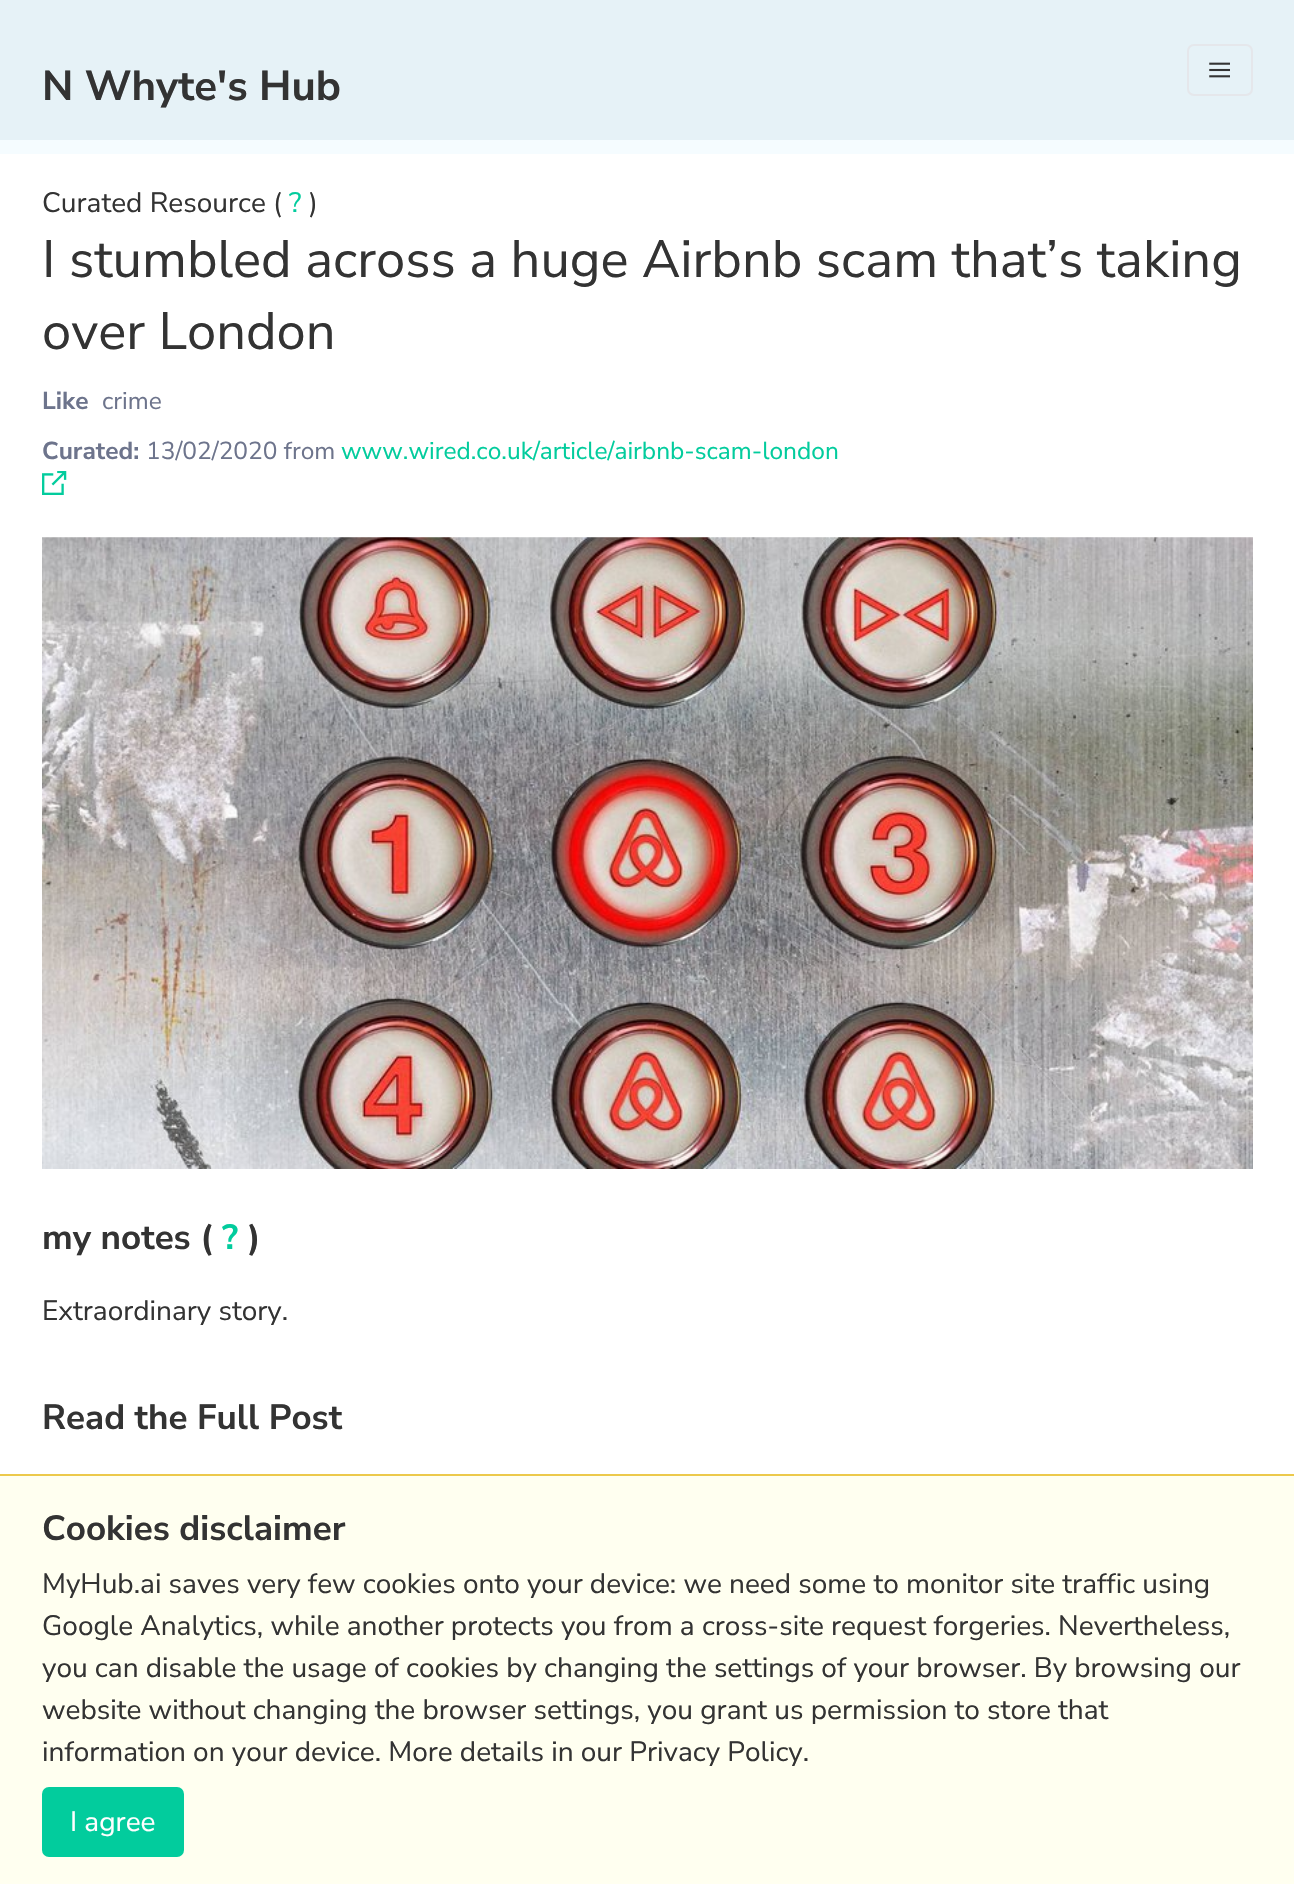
void draw(SkCanvas* canvas) {
	SkPaint paint;
	paint.setAntiAlias(true);
	canvas->clear(0xffffffff);
	paint.setColor(0xffe6f2f7);
	canvas->drawRect(SkRect::MakeXYWH(0, 0, 1294, 140), paint);
	SkFont f1(fontMgr->matchFamilyStyle("Nunito Sans", SkFontStyle::Bold()), 42);
	f1.setSubpixel(true);
	paint.setColor(0xff333333);
	canvas->drawString("N Whyte's Hub", 42, 100, f1, paint);
	paint.setStroke(true);
	paint.setStrokeWidth(2);
	paint.setColor(0xffe5e7eb);
	canvas->drawRoundRect(SkRect::MakeXYWH(1188, 45, 64, 50), 6, 6, paint);
	canvas->drawImageRect(SkImages::DeferredFromEncodedData(SkData::MakeFromFileName("img1.png")), SkRect::MakeXYWH(1209, 62, 21, 16), SkSamplingOptions());
	paint.setStroke(false);
	paint.setColor(0xfff5fcff);
	canvas->drawRect(SkRect::MakeXYWH(0, 140, 1294, 14), paint);
	SkFont f2(fontMgr->matchFamilyStyle("Nunito Sans", SkFontStyle::Normal()), 28);
	f2.setSubpixel(true);
	paint.setColor(0xff333333);
	canvas->drawString("Curated Resource (", 42, 212, f2, paint);
	paint.setColor(0xff02cc9d);
	canvas->drawString("?", 289, 212, f2, paint);
	paint.setColor(0xff333333);
	canvas->drawString(")", 309, 212, f2, paint);
	SkFont f3(fontMgr->matchFamilyStyle("Nunito Sans", SkFontStyle::Normal()), 52.5);
	f3.setSubpixel(true);
	canvas->drawString("I stumbled across a huge Airbnb scam that’s taking", 42, 277, f3, paint);
	canvas->drawString("over London", 42, 349, f3, paint);
	SkFont f4(fontMgr->matchFamilyStyle("Nunito Sans", SkFontStyle::Bold()), 24.5);
	f4.setSubpixel(true);
	paint.setColor(0xff6d748c);
	canvas->drawString("Like", 42, 409, f4, paint);
	SkFont f5(fontMgr->matchFamilyStyle("Nunito Sans", SkFontStyle::Normal()), 24.5);
	f5.setSubpixel(true);
	canvas->drawString("crime", 102, 409, f5, paint);
	canvas->drawString("Curated:", 42, 459, f4, paint);
	canvas->drawString("13/02/2020 from", 146, 459, f5, paint);
	paint.setColor(0xff02cc9d);
	canvas->drawString("www.wired.co.uk/article/airbnb-scam-london", 341, 459, f5, paint);
	canvas->drawImageRect(SkImages::DeferredFromEncodedData(SkData::MakeFromFileName("img2.png")), SkRect::MakeXYWH(42, 471, 25, 24), SkSamplingOptions());
	canvas->drawImageRect(SkImages::DeferredFromEncodedData(SkData::MakeFromFileName("img3.png")), SkRect::MakeXYWH(42, 537, 1211, 632), SkSamplingOptions());
	SkFont f6(fontMgr->matchFamilyStyle("Nunito Sans", SkFontStyle::Bold()), 35);
	f6.setSubpixel(true);
	paint.setColor(0xff333333);
	canvas->drawString("my notes (", 42, 1249, f6, paint);
	paint.setColor(0xff02cc9d);
	canvas->drawString("?", 222, 1249, f6, paint);
	paint.setColor(0xff333333);
	canvas->drawString(")", 248, 1249, f6, paint);
	canvas->drawString("Extraordinary story.", 42, 1320, f2, paint);
	canvas->drawString("Read the Full Post", 42, 1429, f6, paint);
	paint.setColor(0xfffffff0);
	canvas->drawRect(SkRect::MakeXYWH(0, 1476, 1294, 408), paint);
	paint.setColor(0xffecc94b);
	canvas->drawRect(SkRect::MakeXYWH(0, 1474, 1294, 2), paint);
	paint.setColor(0xff333333);
	canvas->drawString("Cookies disclaimer", 42, 1540, f6, paint);
	canvas->drawString("MyHub.ai saves very few cookies onto your device: we need some to monitor site traffic using", 42, 1593, f2, paint);
	canvas->drawString("Google Analytics, while another protects you from a cross-site request forgeries. Nevertheless,", 42, 1635, f2, paint);
	canvas->drawString("you can disable the usage of cookies by changing the settings of your browser. By browsing our", 42, 1677, f2, paint);
	canvas->drawString("website without changing the browser settings, you grant us permission to store that", 42, 1719, f2, paint);
	canvas->drawString("information on your device. More details in our Privacy Policy.", 42, 1761, f2, paint);
	paint.setColor(0xff02cc9d);
	canvas->drawRoundRect(SkRect::MakeXYWH(42, 1787, 142, 70), 7, 7, paint);
	paint.setColor(0xffffffff);
	canvas->drawString("I agree", 70, 1831, f2, paint);
}
